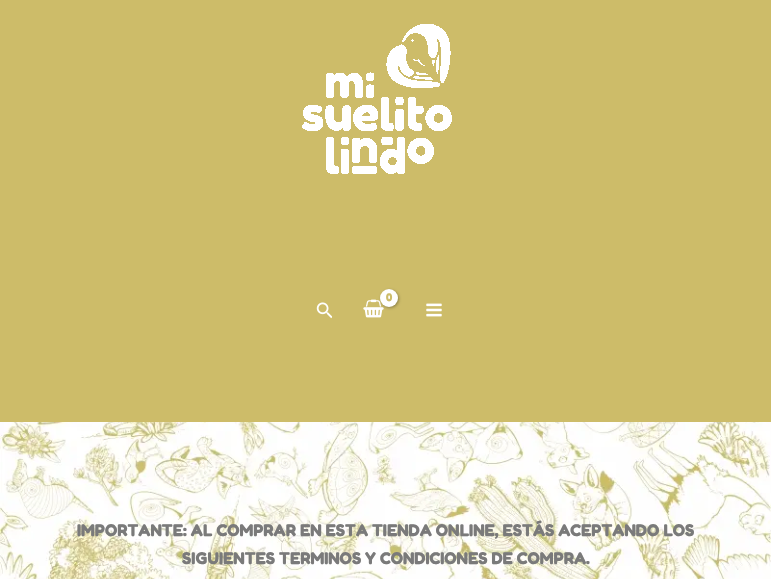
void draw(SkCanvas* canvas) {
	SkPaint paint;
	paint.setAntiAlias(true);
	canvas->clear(0xffffffff);
	canvas->drawImageRect(SkImages::DeferredFromEncodedData(SkData::MakeFromFileName("img1.png")), SkRect::MakeXYWH(0, 422, 771, 157), SkSamplingOptions());
	paint.setColor(0xffcdbc69);
	canvas->drawRect(SkRect::MakeXYWH(0, 0, 771, 422), paint);
	canvas->drawImageRect(SkImages::DeferredFromEncodedData(SkData::MakeFromFileName("img2.png")), SkRect::MakeXYWH(302, 24, 150, 150), SkSamplingOptions());
	canvas->drawImageRect(SkImages::DeferredFromEncodedData(SkData::MakeFromFileName("img3.png")), SkRect::MakeXYWH(363, 299, 21, 19), SkSamplingOptions());
	paint.setColor(0x4d000000);
	paint.setMaskFilter(SkMaskFilter::MakeBlur(kNormal_SkBlurStyle, 1.5));
	canvas->drawRoundRect(SkRect::MakeXYWH(381, 290, 18, 18), 9, 9, paint);
	paint.setMaskFilter(nullptr);
	paint.setColor(0xffffffff);
	canvas->drawCircle(389, 298, 9, paint);
	SkFont f1(fontMgr->matchFamilyStyle("Fredoka", SkFontStyle::Bold()), 11);
	f1.setSubpixel(true);
	paint.setColor(0xffcdbc69);
	canvas->drawString("0", 386, 301, f1, paint);
	canvas->drawImageRect(SkImages::DeferredFromEncodedData(SkData::MakeFromFileName("img4.png")), SkRect::MakeXYWH(316, 302, 16, 17), SkSamplingOptions());
	canvas->drawImageRect(SkImages::DeferredFromEncodedData(SkData::MakeFromFileName("img5.png")), SkRect::MakeXYWH(426, 303, 16, 14), SkSamplingOptions());
	SkFont f2(fontMgr->matchFamilyStyle("Fredoka", SkFontStyle::Bold()), 17);
	f2.setSubpixel(true);
	paint.setColor(0xff7a7a7a);
	canvas->drawString("IMPORTANTE: AL COMPRAR EN ESTA TIENDA ONLINE, ESTÁS ACEPTANDO LOS", 77, 536, f2, paint);
	canvas->drawString("SIGUIENTES TERMINOS Y CONDICIONES DE COMPRA.", 182, 564, f2, paint);
}
